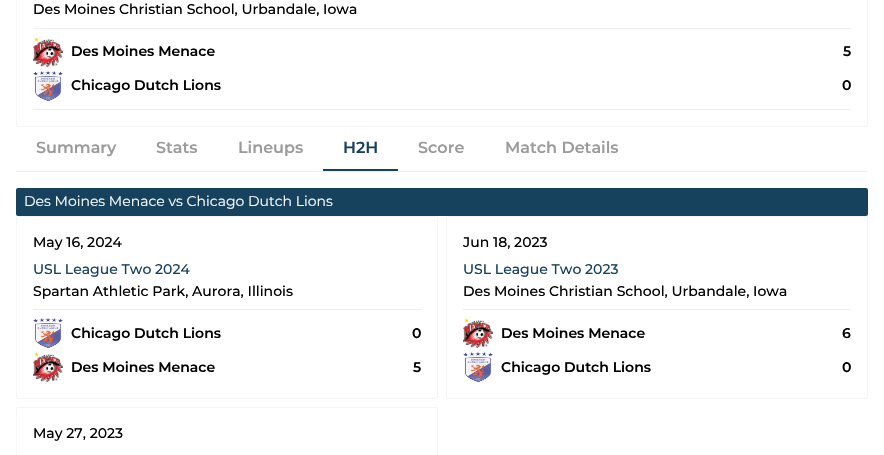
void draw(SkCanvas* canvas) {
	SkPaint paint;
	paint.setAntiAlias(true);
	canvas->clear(0xffffffff);
	paint.setStroke(true);
	paint.setStrokeWidth(1);
	paint.setColor(0xfff5f5f5);
	canvas->drawRoundRect(SkRect::MakeXYWH(16.5, -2.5, 851, 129), 1.5, 1.5, paint);
	SkFont f1(fontMgr->matchFamilyStyle("Montserrat", SkFontStyle(500, SkFontStyle::kNormal_Width, SkFontStyle::kUpright_Slant)), 14);
	f1.setSubpixel(true);
	paint.setStroke(false);
	paint.setColor(0xff000000);
	canvas->drawString("Des Moines Christian School, Urbandale, Iowa", 33, 14, f1, paint);
	paint.setColor(0xffeeeeee);
	canvas->drawRect(SkRect::MakeXYWH(33, 28, 818, 1), paint);
	canvas->drawRect(SkRect::MakeXYWH(33, 109, 818, 1), paint);
	canvas->drawImageRect(SkImages::DeferredFromEncodedData(SkData::MakeFromFileName("img1.png")), SkRect::MakeXYWH(33, 37, 30, 30), SkSamplingOptions());
	SkFont f2(fontMgr->matchFamilyStyle("Montserrat", SkFontStyle(600, SkFontStyle::kNormal_Width, SkFontStyle::kUpright_Slant)), 14);
	f2.setSubpixel(true);
	paint.setColor(0xff000000);
	canvas->drawString("Des Moines Menace", 71, 56, f2, paint);
	canvas->drawString("5", 843, 56, f2, paint);
	canvas->drawImageRect(SkImages::DeferredFromEncodedData(SkData::MakeFromFileName("img2.png")), SkRect::MakeXYWH(33, 71, 30, 30), SkSamplingOptions());
	canvas->drawString("Chicago Dutch Lions", 71, 90, f2, paint);
	canvas->drawString("0", 842, 90, f2, paint);
	paint.setColor(0xffeeeeee);
	canvas->drawRect(SkRect::MakeXYWH(16, 171, 852, 1), paint);
	SkFont f3(fontMgr->matchFamilyStyle("Montserrat", SkFontStyle(600, SkFontStyle::kNormal_Width, SkFontStyle::kUpright_Slant)), 16);
	f3.setSubpixel(true);
	paint.setColor(0xff9b9b9b);
	canvas->drawString("Summary", 36, 153, f3, paint);
	canvas->drawString("Stats", 156, 153, f3, paint);
	canvas->drawString("Lineups", 238, 153, f3, paint);
	paint.setColor(0xff17425d);
	canvas->drawRect(SkRect::MakeXYWH(323, 169, 75, 2), paint);
	canvas->drawString("H2H", 343, 153, f3, paint);
	paint.setColor(0xff9b9b9b);
	canvas->drawString("Score", 418, 153, f3, paint);
	canvas->drawString("Match Details", 505, 153, f3, paint);
	paint.setColor(0xff17425d);
	canvas->drawRoundRect(SkRect::MakeXYWH(16, 188, 852, 28), 2, 2, paint);
	SkFont f4(fontMgr->matchFamilyStyle("Montserrat", SkFontStyle::Normal()), 14);
	f4.setSubpixel(true);
	paint.setColor(0xffffffff);
	canvas->drawString("Des Moines Menace vs Chicago Dutch Lions", 24, 206, f4, paint);
	paint.setStroke(true);
	paint.setColor(0xfff5f5f5);
	canvas->drawRoundRect(SkRect::MakeXYWH(16.5, 216.5, 421, 182), 1.5, 1.5, paint);
	paint.setStroke(false);
	paint.setColor(0xff000000);
	canvas->drawString("May 16, 2024", 33, 247, f1, paint);
	paint.setColor(0xff17425d);
	canvas->drawString("USL League Two 2024", 33, 274, f1, paint);
	paint.setColor(0xff000000);
	canvas->drawString("Spartan Athletic Park, Aurora, Illinois", 33, 296, f1, paint);
	paint.setColor(0xffeeeeee);
	canvas->drawRect(SkRect::MakeXYWH(33, 309, 388, 1), paint);
	canvas->drawImageRect(SkImages::DeferredFromEncodedData(SkData::MakeFromFileName("img2.png")), SkRect::MakeXYWH(33, 318, 30, 30), SkSamplingOptions());
	paint.setColor(0xff000000);
	canvas->drawString("Chicago Dutch Lions", 71, 338, f2, paint);
	canvas->drawString("0", 412, 338, f2, paint);
	canvas->drawImageRect(SkImages::DeferredFromEncodedData(SkData::MakeFromFileName("img1.png")), SkRect::MakeXYWH(33, 352, 30, 30), SkSamplingOptions());
	canvas->drawString("Des Moines Menace", 71, 372, f2, paint);
	canvas->drawString("5", 413, 372, f2, paint);
	paint.setStroke(true);
	paint.setColor(0xfff5f5f5);
	canvas->drawRoundRect(SkRect::MakeXYWH(446.5, 216.5, 421, 182), 1.5, 1.5, paint);
	paint.setStroke(false);
	paint.setColor(0xff000000);
	canvas->drawString("Jun 18, 2023", 463, 247, f1, paint);
	paint.setColor(0xff17425d);
	canvas->drawString("USL League Two 2023", 463, 274, f1, paint);
	paint.setColor(0xff000000);
	canvas->drawString("Des Moines Christian School, Urbandale, Iowa", 463, 296, f1, paint);
	paint.setColor(0xffeeeeee);
	canvas->drawRect(SkRect::MakeXYWH(463, 309, 388, 1), paint);
	canvas->drawImageRect(SkImages::DeferredFromEncodedData(SkData::MakeFromFileName("img3.png")), SkRect::MakeXYWH(463, 318, 30, 30), SkSamplingOptions());
	paint.setColor(0xff000000);
	canvas->drawString("Des Moines Menace", 501, 338, f2, paint);
	canvas->drawString("6", 842, 338, f2, paint);
	canvas->drawImageRect(SkImages::DeferredFromEncodedData(SkData::MakeFromFileName("img2.png")), SkRect::MakeXYWH(463, 352, 30, 30), SkSamplingOptions());
	canvas->drawString("Chicago Dutch Lions", 501, 372, f2, paint);
	canvas->drawString("0", 842, 372, f2, paint);
	paint.setStroke(true);
	paint.setColor(0xfff5f5f5);
	canvas->drawRoundRect(SkRect::MakeXYWH(16.5, 407.5, 421, 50), 1.5, 1.5, paint);
	paint.setStroke(false);
	paint.setColor(0xff000000);
	canvas->drawString("May 27, 2023", 33, 438, f1, paint);
}
